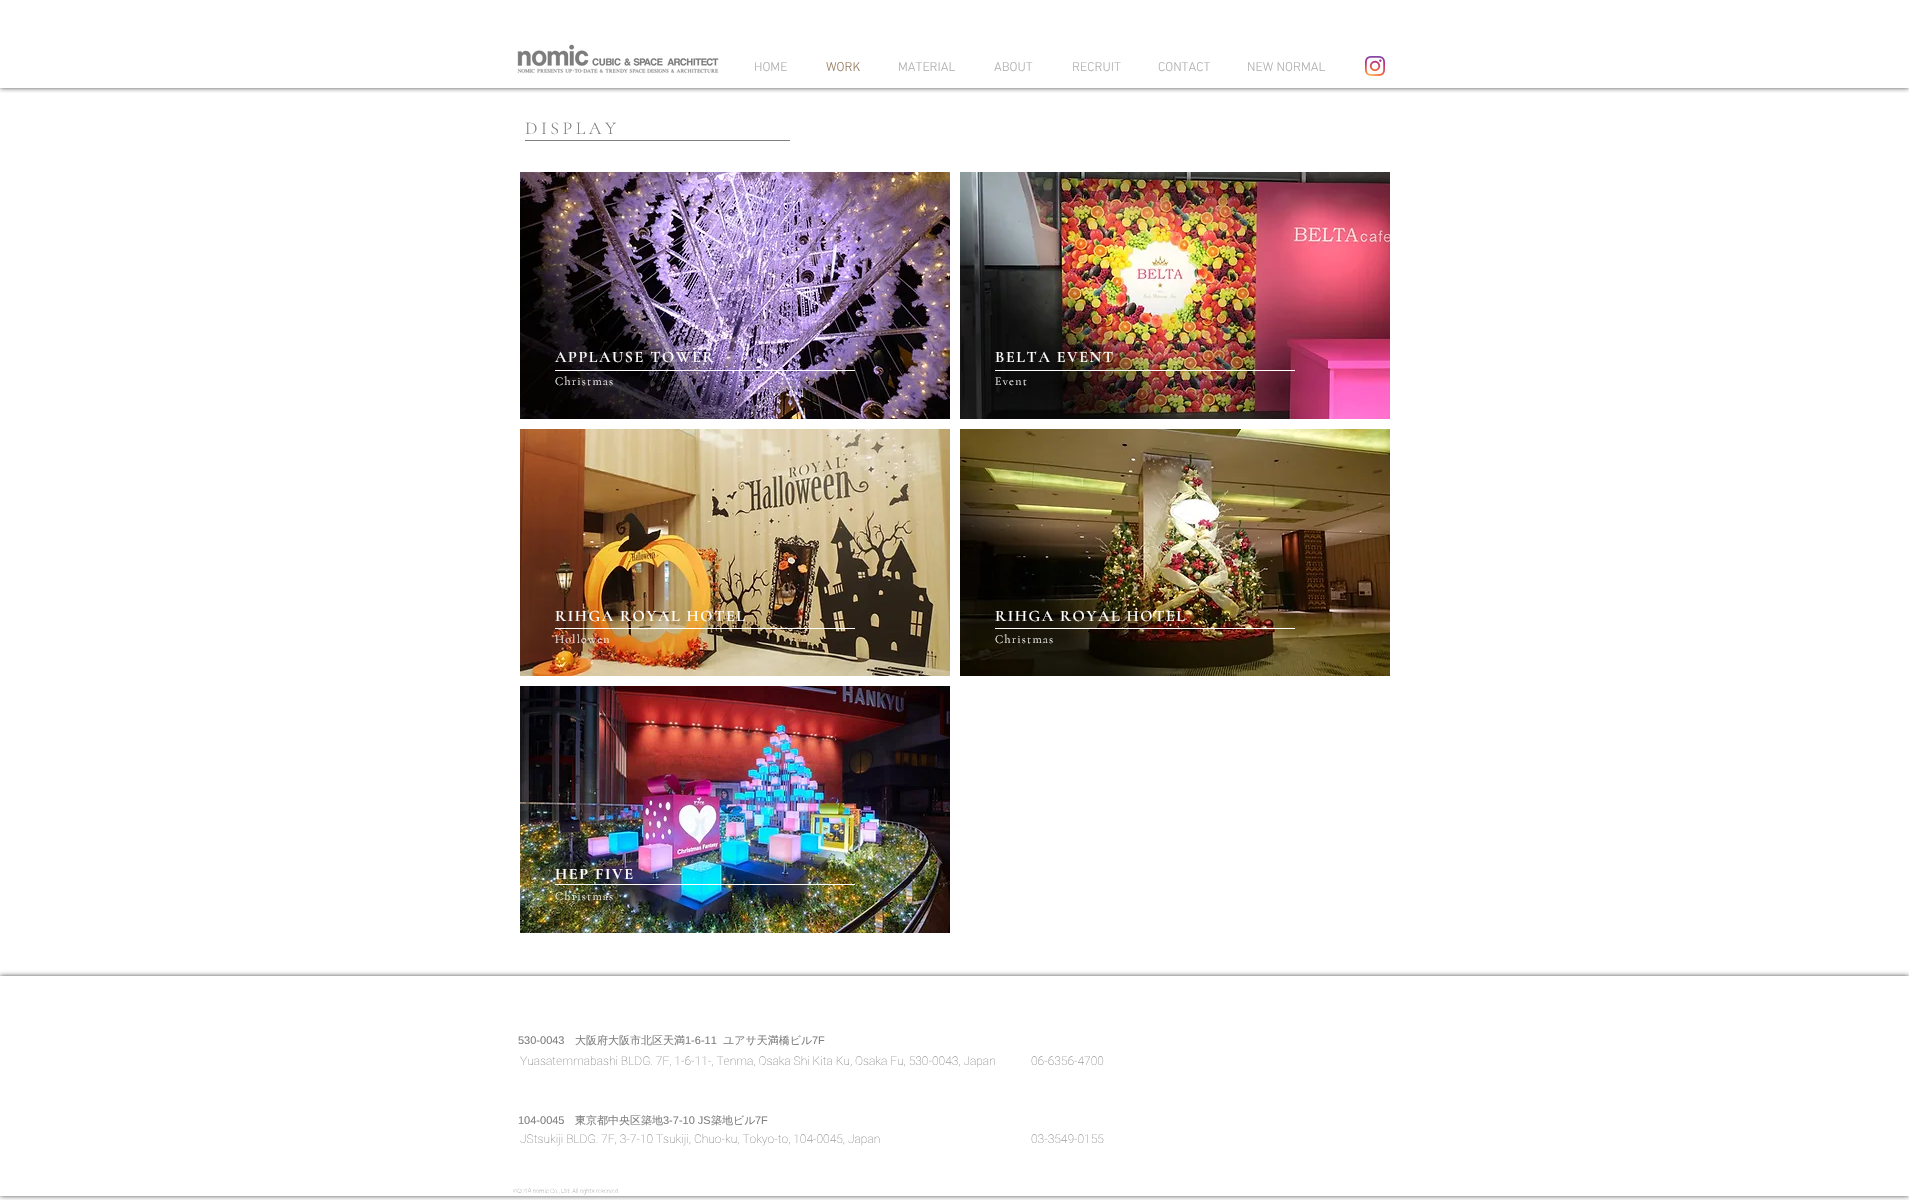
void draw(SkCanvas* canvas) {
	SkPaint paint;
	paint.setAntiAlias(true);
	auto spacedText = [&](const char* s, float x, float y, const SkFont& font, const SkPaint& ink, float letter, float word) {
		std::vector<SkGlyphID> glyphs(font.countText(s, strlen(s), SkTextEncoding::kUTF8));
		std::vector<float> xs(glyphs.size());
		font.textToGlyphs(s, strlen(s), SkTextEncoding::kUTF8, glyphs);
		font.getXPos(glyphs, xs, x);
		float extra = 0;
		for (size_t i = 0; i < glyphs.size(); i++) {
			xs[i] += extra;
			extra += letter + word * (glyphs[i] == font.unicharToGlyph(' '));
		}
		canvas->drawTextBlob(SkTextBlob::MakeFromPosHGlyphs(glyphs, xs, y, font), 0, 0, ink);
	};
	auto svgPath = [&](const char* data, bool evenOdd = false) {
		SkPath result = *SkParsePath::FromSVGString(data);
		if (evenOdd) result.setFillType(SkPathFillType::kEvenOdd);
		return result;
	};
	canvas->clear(0xffffffff);
	canvas->save();
	canvas->clipRect(SkRect::MakeXYWH(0, 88, 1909, 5));
	paint.setColor(0xb3000000);
	paint.setMaskFilter(SkMaskFilter::MakeBlur(kNormal_SkBlurStyle, 2.5));
	canvas->drawRect(SkRect::MakeXYWH(0, 0, 1909, 88), paint);
	paint.setMaskFilter(nullptr);
	canvas->restore();
	canvas->drawImageRect(SkImages::DeferredFromEncodedData(SkData::MakeFromFileName("img1.png")), SkRect::MakeXYWH(517, 44, 202, 30), SkSamplingOptions());
	SkFont f1(fontMgr->matchFamilyStyle("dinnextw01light", SkFontStyle(300, SkFontStyle::kNormal_Width, SkFontStyle::kUpright_Slant)), 13);
	f1.setSubpixel(true);
	paint.setColor(0xffb0b0b0);
	canvas->drawString("HOME", 754, 71, f1, paint);
	paint.setColor(0xff957b5f);
	canvas->drawString("WORK", 826, 71, f1, paint);
	paint.setColor(0xffb0b0b0);
	canvas->drawString("MATERIAL", 898, 71, f1, paint);
	canvas->drawString("ABOUT", 994, 71, f1, paint);
	canvas->drawString("RECRUIT", 1072, 71, f1, paint);
	canvas->drawString("CONTACT", 1158, 71, f1, paint);
	canvas->drawString("NEW NORMAL", 1247, 71, f1, paint);
	canvas->drawImageRect(SkImages::DeferredFromEncodedData(SkData::MakeFromFileName("img2.png")), SkRect::MakeXYWH(1365, 56, 20, 20), SkSamplingOptions());
	SkFont f2(fontMgr->matchFamilyStyle("Cormorant Garamond", SkFontStyle(300, SkFontStyle::kNormal_Width, SkFontStyle::kUpright_Slant)), 18);
	f2.setSubpixel(true);
	paint.setColor(0xff808080);
	spacedText("DISPLAY", 525, 134, f2, paint, 3.5, 0);
	canvas->drawRect(SkRect::MakeXYWH(525, 140, 265, 1), paint);
	canvas->drawImageRect(SkImages::DeferredFromEncodedData(SkData::MakeFromFileName("img3.png")), SkRect::MakeXYWH(520, 172, 430, 247), SkSamplingOptions());
	canvas->drawImageRect(SkImages::DeferredFromEncodedData(SkData::MakeFromFileName("img4.png")), SkRect::MakeXYWH(960, 172, 430, 247), SkSamplingOptions());
	SkFont f3(fontMgr->matchFamilyStyle("Cormorant Garamond", SkFontStyle(600, SkFontStyle::kNormal_Width, SkFontStyle::kUpright_Slant)), 16);
	f3.setSubpixel(true);
	paint.setColor(0xffffffff);
	spacedText("APPLAUSE TOWER", 555, 362, f3, paint, 1.6, 0);
	spacedText("BELTA EVENT", 995, 362, f3, paint, 1.6, 0);
	canvas->drawRect(SkRect::MakeXYWH(555, 370, 300, 1), paint);
	canvas->drawRect(SkRect::MakeXYWH(995, 370, 300, 1), paint);
	SkFont f4(fontMgr->matchFamilyStyle("Cormorant Garamond", SkFontStyle(300, SkFontStyle::kNormal_Width, SkFontStyle::kUpright_Slant)), 12);
	f4.setSubpixel(true);
	spacedText("Christmas", 555, 385, f4, paint, 1.25, 0);
	spacedText("Event", 995, 385, f4, paint, 1.25, 0);
	canvas->drawImageRect(SkImages::DeferredFromEncodedData(SkData::MakeFromFileName("img5.png")), SkRect::MakeXYWH(520, 429, 430, 247), SkSamplingOptions());
	canvas->drawImageRect(SkImages::DeferredFromEncodedData(SkData::MakeFromFileName("img6.png")), SkRect::MakeXYWH(960, 429, 430, 247), SkSamplingOptions());
	spacedText("RIHGA ROYAL HOTEL", 555, 621, f3, paint, 1.6, 0);
	spacedText("RIHGA ROYAL HOTEL", 995, 621, f3, paint, 1.6, 0);
	canvas->drawRect(SkRect::MakeXYWH(555, 628, 300, 1), paint);
	canvas->drawRect(SkRect::MakeXYWH(995, 628, 300, 1), paint);
	spacedText("Hollowen", 555, 643, f4, paint, 1.25, 0);
	spacedText("Christmas", 995, 643, f4, paint, 1.25, 0);
	canvas->drawImageRect(SkImages::DeferredFromEncodedData(SkData::MakeFromFileName("img7.png")), SkRect::MakeXYWH(520, 686, 430, 247), SkSamplingOptions());
	SkFont f5(fontMgr->matchFamilyStyle("Cormorant Garamond", SkFontStyle::Bold()), 16);
	f5.setSubpixel(true);
	spacedText("HEP FIVE", 555, 879, f5, paint, 1.6, 0);
	canvas->drawRect(SkRect::MakeXYWH(555, 884, 300, 1), paint);
	spacedText("Christmas", 555, 900, f4, paint, 1.25, 0);
	canvas->save();
	canvas->clipPath(svgPath("M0 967H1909V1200H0ZM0 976H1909V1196H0Z", true), true);
	paint.setColor(0xb3000000);
	paint.setMaskFilter(SkMaskFilter::MakeBlur(kNormal_SkBlurStyle, 2.5));
	canvas->drawRect(SkRect::MakeXYWH(0, 976, 1909, 220), paint);
	paint.setMaskFilter(nullptr);
	canvas->restore();
	SkFont f6(fontMgr->matchFamilyStyle("Liberation Sans", SkFontStyle::Normal()), 11);
	f6.setSubpixel(true);
	paint.setColor(0xff808080);
	canvas->drawString("530-0043", 518, 1044, f6, paint);
	SkFont f7(fontMgr->matchFamilyStyle("WenQuanYi Zen Hei", SkFontStyle(500, SkFontStyle::kNormal_Width, SkFontStyle::kUpright_Slant)), 11);
	f7.setSubpixel(true);
	canvas->drawString("大阪府大阪市北区天満", 575, 1044, f7, paint);
	canvas->drawString("1-6-11", 685, 1044, f6, paint);
	canvas->drawString("ユアサ天満橋ビル", 723, 1044, f7, paint);
	canvas->drawString("7F", 812, 1044, f6, paint);
	SkFont f8(fontMgr->matchFamilyStyle("Roboto", SkFontStyle(100, SkFontStyle::kNormal_Width, SkFontStyle::kUpright_Slant)), 12);
	f8.setSubpixel(true);
	canvas->drawString("Yuasatemmabashi BLDG. 7F, 1-6-11-, Tenma, Osaka Shi Kita Ku, Osaka Fu, 530-0043, Japan", 520, 1065, f8, paint);
	canvas->drawString("06-6356-4700", 1031, 1065, f8, paint);
	canvas->drawString("104-0045", 518, 1124, f6, paint);
	canvas->drawString("東京都中央区築地", 575, 1124, f7, paint);
	canvas->drawString("3-7-10 JS", 663, 1124, f6, paint);
	canvas->drawString("築地ビル", 711, 1124, f7, paint);
	canvas->drawString("7F", 755, 1124, f6, paint);
	canvas->drawString("JStsukiji BLDG. 7F, 3-7-10 Tsukiji, Chuo-ku, Tokyo-to, 104-0045, Japan", 520, 1143, f8, paint);
	canvas->drawString("03-3549-0155", 1031, 1143, f8, paint);
	SkFont f9(fontMgr->matchFamilyStyle("Roboto", SkFontStyle(100, SkFontStyle::kNormal_Width, SkFontStyle::kUpright_Slant)), 6);
	f9.setSubpixel(true);
	canvas->drawString("©2019 nomic Co., Ltd. All rights reserved", 513, 1193, f9, paint);
}
